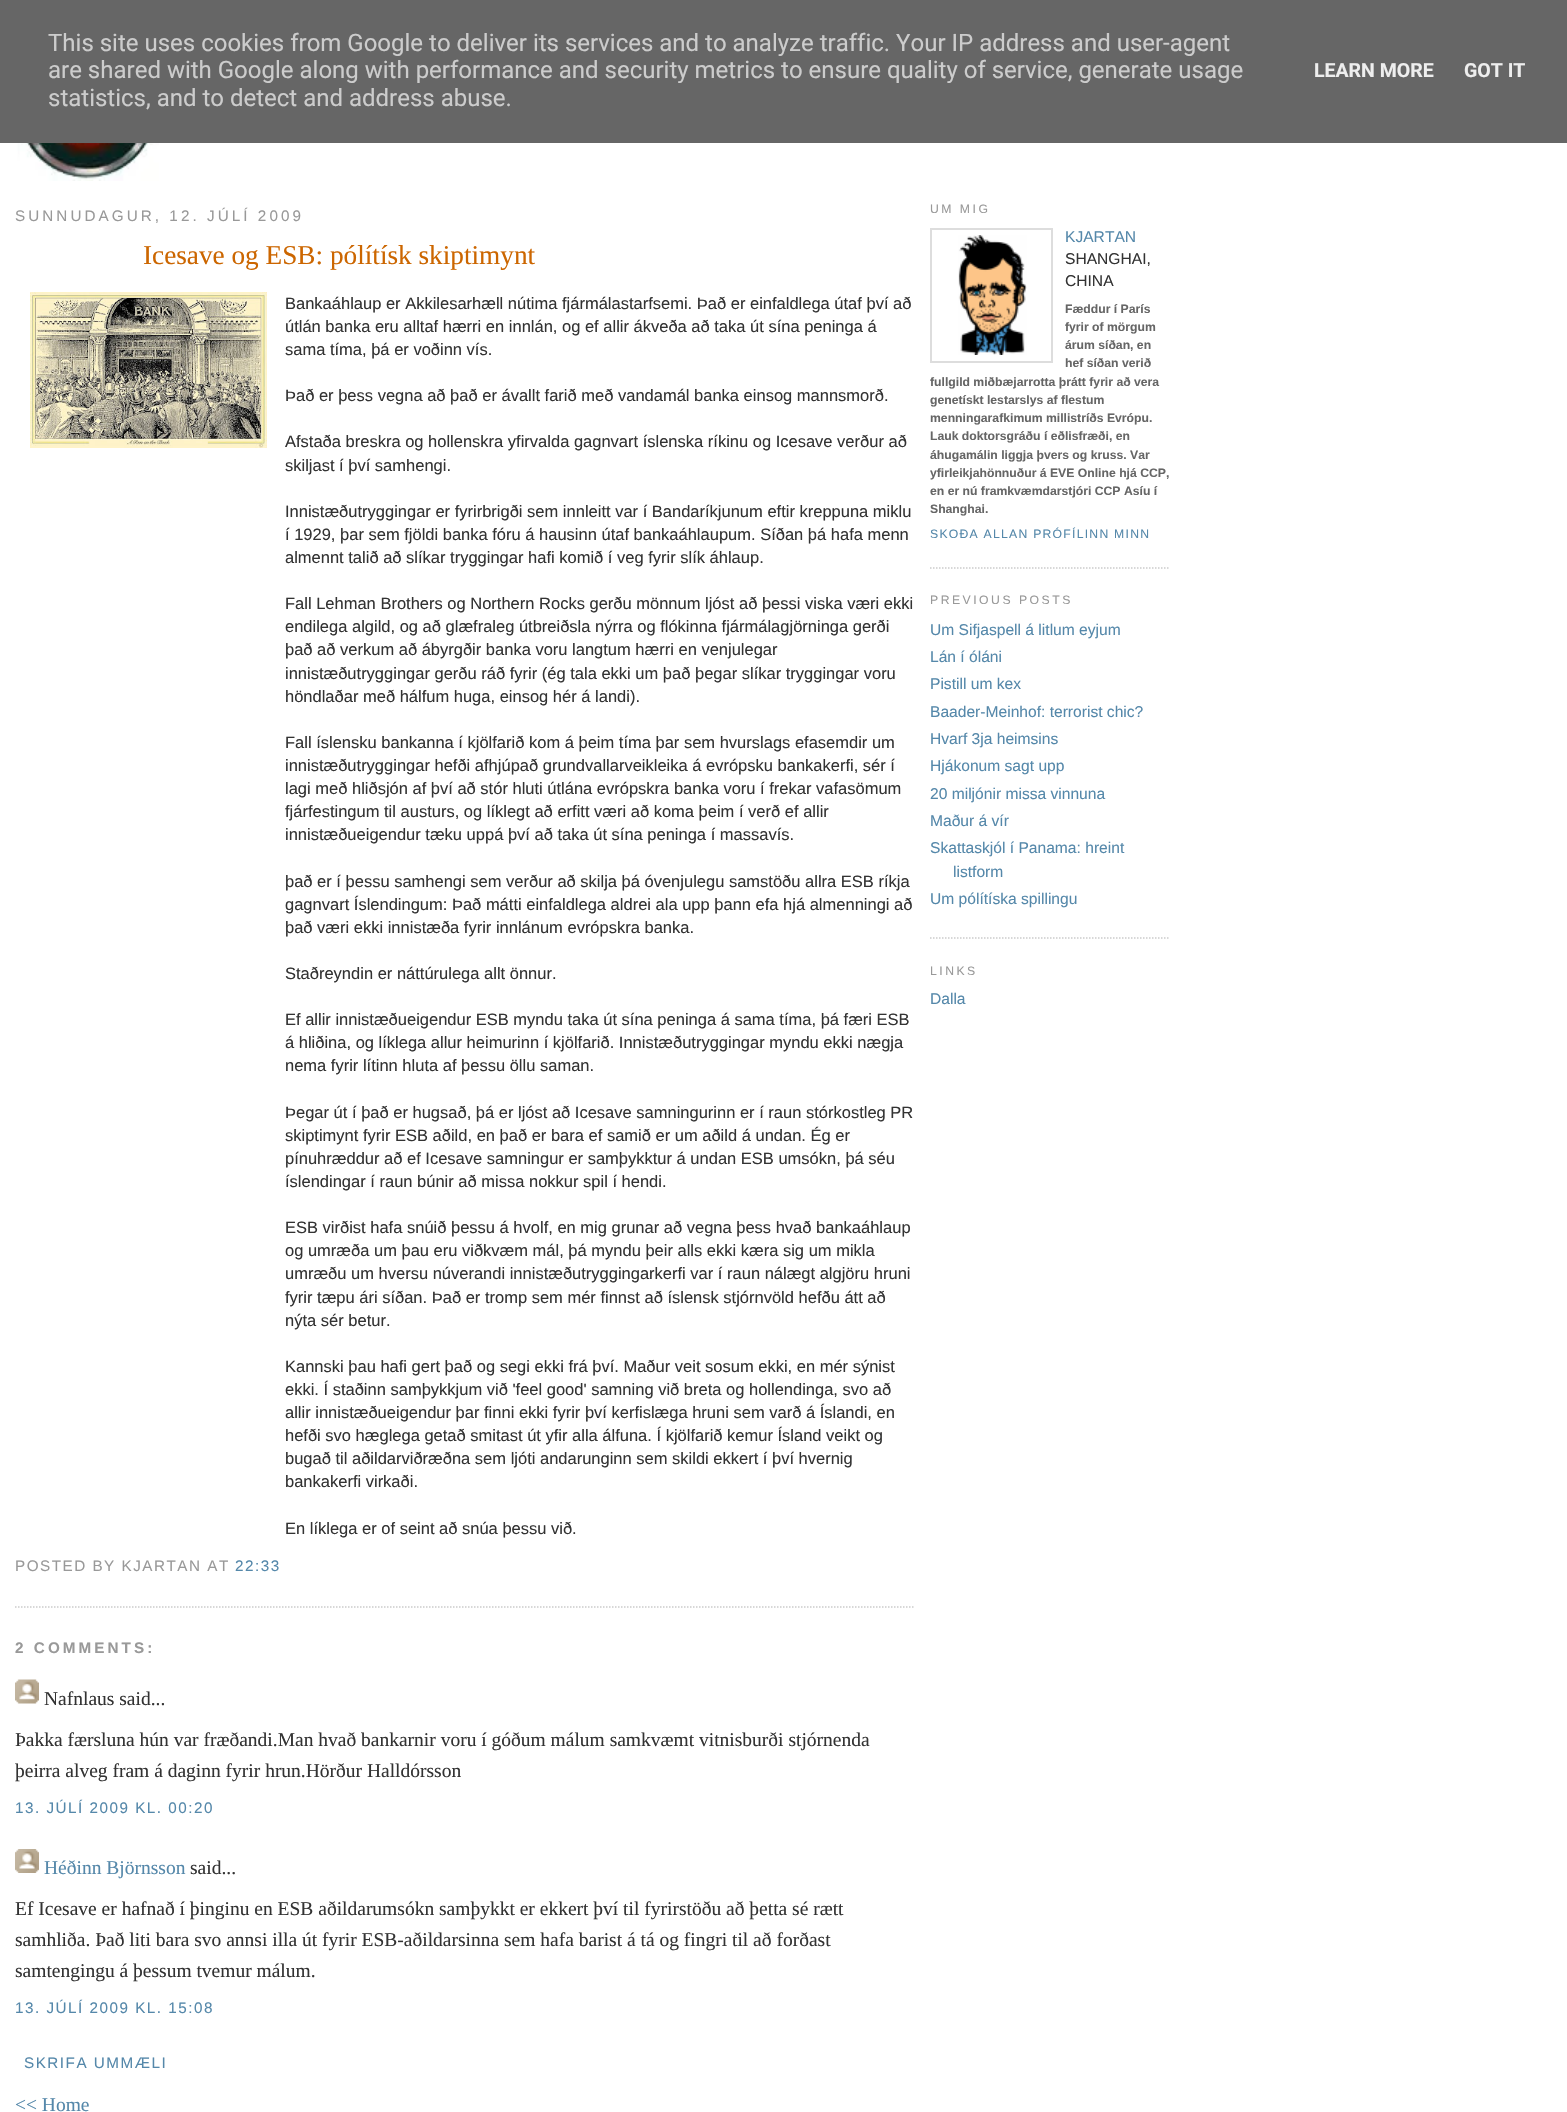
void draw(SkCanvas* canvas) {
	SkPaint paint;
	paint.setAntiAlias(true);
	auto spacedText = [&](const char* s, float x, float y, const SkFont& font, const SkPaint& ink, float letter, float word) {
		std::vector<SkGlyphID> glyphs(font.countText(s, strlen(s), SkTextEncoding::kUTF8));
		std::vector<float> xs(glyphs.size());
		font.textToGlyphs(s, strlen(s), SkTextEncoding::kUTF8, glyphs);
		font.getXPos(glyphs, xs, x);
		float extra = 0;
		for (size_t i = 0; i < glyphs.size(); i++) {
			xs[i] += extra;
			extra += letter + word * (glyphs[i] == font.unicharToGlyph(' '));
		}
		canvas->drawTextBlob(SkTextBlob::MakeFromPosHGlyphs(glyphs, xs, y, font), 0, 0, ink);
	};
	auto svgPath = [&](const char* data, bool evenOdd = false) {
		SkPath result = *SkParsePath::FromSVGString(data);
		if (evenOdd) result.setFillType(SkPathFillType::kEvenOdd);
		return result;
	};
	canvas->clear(0xffffffff);
	paint.setColor(0xff666666);
	canvas->drawRect(SkRect::MakeXYWH(0, 0, 1567, 143), paint);
	SkFont f1(fontMgr->matchFamilyStyle("Roboto", SkFontStyle::Normal()), 24);
	f1.setSubpixel(true);
	paint.setColor(0xffcccccc);
	canvas->drawString("This site uses cookies from Google to deliver its services and to analyze traffic. Your IP address and user-agent", 48, 51, f1, paint);
	canvas->drawString("are shared with Google along with performance and security metrics to ensure quality of service, generate usage", 48, 78, f1, paint);
	canvas->drawString("statistics, and to detect and address abuse.", 48, 106, f1, paint);
	SkFont f2(fontMgr->matchFamilyStyle("Roboto", SkFontStyle::Bold()), 19.5);
	f2.setSubpixel(true);
	paint.setColor(0xffeeeeee);
	canvas->drawString("LEARN MORE", 1314, 77, f2, paint);
	canvas->drawString("GOT IT", 1464, 77, f2, paint);
	canvas->drawImageRect(SkImages::DeferredFromEncodedData(SkData::MakeFromFileName("img1.png")), SkRect::MakeXYWH(15, 143, 144, 38), SkSamplingOptions());
	SkFont f3(fontMgr->matchFamilyStyle("Liberation Sans", SkFontStyle::Normal()), 15.25);
	f3.setSubpixel(true);
	paint.setColor(0xff999999);
	spacedText("SUNNUDAGUR, 12. JÚLÍ 2009", 15, 221, f3, paint, 3.05, 0);
	paint.setStroke(true);
	paint.setStrokeWidth(1.5);
	paint.setColor(0xffcccccc);
	paint.setPathEffect(SkDashPathEffect::Make({{1.5f, 1.5f}}, 0));
	canvas->drawPath(svgPath("M15 1607H915"), paint);
	paint.setPathEffect(nullptr);
	SkFont f4(fontMgr->matchFamilyStyle("Liberation Serif", SkFontStyle::Normal()), 27.25);
	f4.setSubpixel(true);
	paint.setStroke(false);
	paint.setColor(0xffcc6600);
	canvas->drawString("Icesave og ESB: pólítísk skiptimynt", 143, 264, f4, paint);
	canvas->drawImageRect(SkImages::DeferredFromEncodedData(SkData::MakeFromFileName("img2.png")), SkRect::MakeXYWH(30, 292, 237, 156), SkSamplingOptions());
	SkFont f5(fontMgr->matchFamilyStyle("Liberation Sans", SkFontStyle::Normal()), 16.5);
	f5.setSubpixel(true);
	paint.setColor(0xff333333);
	canvas->drawString("Bankaáhlaup er Akkilesarhæll nútima fjármálastarfsemi. Það er einfaldlega útaf því að", 285, 309, f5, paint);
	canvas->drawString("útlán banka eru alltaf hærri en innlán, og ef allir ákveða að taka út sína peninga á", 285, 332, f5, paint);
	canvas->drawString("sama tíma, þá er voðinn vís.", 285, 355, f5, paint);
	canvas->drawString("Það er þess vegna að það er ávallt farið með vandamál banka einsog mannsmorð.", 285, 401, f5, paint);
	canvas->drawString("Afstaða breskra og hollenskra yfirvalda gagnvart íslenska ríkinu og Icesave verður að", 285, 447, f5, paint);
	canvas->drawString("skiljast í því samhengi.", 285, 471, f5, paint);
	canvas->drawString("Innistæðutryggingar er fyrirbrigði sem innleitt var í Bandaríkjunum eftir kreppuna miklu", 285, 517, f5, paint);
	canvas->drawString("í 1929, þar sem fjöldi banka fóru á hausinn útaf bankaáhlaupum. Síðan þá hafa menn", 285, 540, f5, paint);
	canvas->drawString("almennt talið að slíkar tryggingar hafi komið í veg fyrir slík áhlaup.", 285, 563, f5, paint);
	canvas->drawString("Fall Lehman Brothers og Northern Rocks gerðu mönnum ljóst að þessi viska væri ekki", 285, 609, f5, paint);
	canvas->drawString("endilega algild, og að glæfraleg útbreiðsla nýrra og flókinna fjármálagjörninga gerði", 285, 632, f5, paint);
	canvas->drawString("það að verkum að ábyrgðir banka voru langtum hærri en venjulegar", 285, 655, f5, paint);
	canvas->drawString("innistæðutryggingar gerðu ráð fyrir (ég tala ekki um það þegar slíkar tryggingar voru", 285, 679, f5, paint);
	canvas->drawString("höndlaðar með hálfum huga, einsog hér á landi).", 285, 702, f5, paint);
	canvas->drawString("Fall íslensku bankanna í kjölfarið kom á þeim tíma þar sem hvurslags efasemdir um", 285, 748, f5, paint);
	canvas->drawString("innistæðutryggingar hefði afhjúpað grundvallarveikleika á evrópsku bankakerfi, sér í", 285, 771, f5, paint);
	canvas->drawString("lagi með hliðsjón af því að stór hluti útlána evrópskra banka voru í frekar vafasömum", 285, 794, f5, paint);
	canvas->drawString("fjárfestingum til austurs, og líklegt að erfitt væri að koma þeim í verð ef allir", 285, 817, f5, paint);
	canvas->drawString("innistæðueigendur tæku uppá því að taka út sína peninga í massavís.", 285, 840, f5, paint);
	canvas->drawString("það er í þessu samhengi sem verður að skilja þá óvenjulegu samstöðu allra ESB ríkja", 285, 887, f5, paint);
	canvas->drawString("gagnvart Íslendingum: Það mátti einfaldlega aldrei ala upp þann efa hjá almenningi að", 285, 910, f5, paint);
	canvas->drawString("það væri ekki innistæða fyrir innlánum evrópskra banka.", 285, 933, f5, paint);
	canvas->drawString("Staðreyndin er náttúrulega allt önnur.", 285, 979, f5, paint);
	canvas->drawString("Ef allir innistæðueigendur ESB myndu taka út sína peninga á sama tíma, þá færi ESB", 285, 1025, f5, paint);
	canvas->drawString("á hliðina, og líklega allur heimurinn í kjölfarið. Innistæðutryggingar myndu ekki nægja", 285, 1048, f5, paint);
	canvas->drawString("nema fyrir lítinn hluta af þessu öllu saman.", 285, 1071, f5, paint);
	canvas->drawString("Þegar út í það er hugsað, þá er ljóst að Icesave samningurinn er í raun stórkostleg PR", 285, 1118, f5, paint);
	canvas->drawString("skiptimynt fyrir ESB aðild, en það er bara ef samið er um aðild á undan. Ég er", 285, 1141, f5, paint);
	canvas->drawString("pínuhræddur að ef Icesave samningur er samþykktur á undan ESB umsókn, þá séu", 285, 1164, f5, paint);
	canvas->drawString("íslendingar í raun búnir að missa nokkur spil í hendi.", 285, 1187, f5, paint);
	canvas->drawString("ESB virðist hafa snúið þessu á hvolf, en mig grunar að vegna þess hvað bankaáhlaup", 285, 1233, f5, paint);
	canvas->drawString("og umræða um þau eru viðkvæm mál, þá myndu þeir alls ekki kæra sig um mikla", 285, 1256, f5, paint);
	canvas->drawString("umræðu um hversu núverandi innistæðutryggingarkerfi var í raun nálægt algjöru hruni", 285, 1279, f5, paint);
	canvas->drawString("fyrir tæpu ári síðan. Það er tromp sem mér finnst að íslensk stjórnvöld hefðu átt að", 285, 1303, f5, paint);
	canvas->drawString("nýta sér betur.", 285, 1326, f5, paint);
	canvas->drawString("Kannski þau hafi gert það og segi ekki frá því. Maður veit sosum ekki, en mér sýnist", 285, 1372, f5, paint);
	canvas->drawString("ekki. Í staðinn samþykkjum við 'feel good' samning við breta og hollendinga, svo að", 285, 1395, f5, paint);
	canvas->drawString("allir innistæðueigendur þar finni ekki fyrir því kerfislæga hruni sem varð á Íslandi, en", 285, 1418, f5, paint);
	canvas->drawString("hefði svo hæglega getað smitast út yfir alla álfuna. Í kjölfarið kemur Ísland veikt og", 285, 1441, f5, paint);
	canvas->drawString("bugað til aðildarviðræðna sem ljóti andarunginn sem skildi ekkert í því hvernig", 285, 1464, f5, paint);
	canvas->drawString("bankakerfi virkaði.", 285, 1487, f5, paint);
	canvas->drawString("En líklega er of seint að snúa þessu við.", 285, 1534, f5, paint);
	paint.setColor(0xff999999);
	spacedText("POSTED BY KJARTAN AT", 15, 1571, f3, paint, 1.5, 0);
	paint.setColor(0xff5588aa);
	spacedText("22:33", 235, 1571, f3, paint, 1.5, 0);
	SkFont f6(fontMgr->matchFamilyStyle("Liberation Sans", SkFontStyle::Bold()), 15.25);
	f6.setSubpixel(true);
	paint.setColor(0xff999999);
	spacedText("2 COMMENTS:", 15, 1653, f6, paint, 3.05, 0);
	canvas->drawImageRect(SkImages::DeferredFromEncodedData(SkData::MakeFromFileName("img3.png")), SkRect::MakeXYWH(15, 1679, 24, 25), SkSamplingOptions());
	SkFont f7(fontMgr->matchFamilyStyle("Liberation Serif", SkFontStyle::Normal()), 19.5);
	f7.setSubpixel(true);
	paint.setColor(0xff333333);
	canvas->drawString("Nafnlaus said...", 44, 1705, f7, paint);
	canvas->drawString("Þakka færsluna hún var fræðandi.Man hvað bankarnir voru í góðum málum samkvæmt vitnisburði stjórnenda", 15, 1746, f7, paint);
	canvas->drawString("þeirra alveg fram á daginn fyrir hrun.Hörður Halldórsson", 15, 1777, f7, paint);
	paint.setColor(0xff5588aa);
	spacedText("13. JÚLÍ 2009 KL. 00:20", 15, 1813, f3, paint, 1.5, 0);
	canvas->drawImageRect(SkImages::DeferredFromEncodedData(SkData::MakeFromFileName("img4.png")), SkRect::MakeXYWH(15, 1849, 24, 24), SkSamplingOptions());
	canvas->drawString("Héðinn Björnsson", 44, 1874, f7, paint);
	paint.setColor(0xff333333);
	canvas->drawString("said...", 190, 1874, f7, paint);
	canvas->drawString("Ef Icesave er hafnað í þinginu en ESB aðildarumsókn samþykkt er ekkert því til fyrirstöðu að þetta sé rætt", 15, 1915, f7, paint);
	canvas->drawString("samhliða. Það liti bara svo annsi illa út fyrir ESB-aðildarsinna sem hafa barist á tá og fingri til að forðast", 15, 1946, f7, paint);
	canvas->drawString("samtengingu á þessum tvemur málum.", 15, 1977, f7, paint);
	paint.setColor(0xff5588aa);
	spacedText("13. JÚLÍ 2009 KL. 15:08", 15, 2013, f3, paint, 1.5, 0);
	spacedText("SKRIFA UMMÆLI", 24, 2068, f3, paint, 1.5, 0);
	canvas->drawString("<< Home", 15, 2111, f7, paint);
	paint.setStroke(true);
	paint.setColor(0xffcccccc);
	paint.setPathEffect(SkDashPathEffect::Make({{1.5f, 1.5f}}, 0));
	canvas->drawPath(svgPath("M930 568H1170"), paint);
	paint.setPathEffect(nullptr);
	SkFont f8(fontMgr->matchFamilyStyle("Liberation Sans", SkFontStyle::Normal()), 12.2);
	f8.setSubpixel(true);
	paint.setStroke(false);
	paint.setColor(0xff999999);
	spacedText("UM MIG", 930, 213, f8, paint, 2.5, 0);
	paint.setStroke(true);
	paint.setStrokeWidth(2);
	paint.setColor(0xffdddddd);
	canvas->drawRect(SkRect::MakeXYWH(931, 229, 121, 133), paint);
	canvas->drawImageRect(SkImages::DeferredFromEncodedData(SkData::MakeFromFileName("img5.png")), SkRect::MakeXYWH(958, 235, 69, 120), SkSamplingOptions());
	SkFont f9(fontMgr->matchFamilyStyle("Liberation Sans", SkFontStyle::Normal()), 15.6);
	f9.setSubpixel(true);
	paint.setStroke(false);
	paint.setColor(0xff5588aa);
	canvas->drawString("KJARTAN", 1065, 242, f9, paint);
	paint.setColor(0xff333333);
	canvas->drawString("SHANGHAI,", 1065, 264, f9, paint);
	canvas->drawString("CHINA", 1065, 286, f9, paint);
	SkFont f10(fontMgr->matchFamilyStyle("Liberation Sans", SkFontStyle::Bold()), 12.2);
	f10.setSubpixel(true);
	paint.setColor(0xff666666);
	canvas->drawString("Fæddur í París", 1065, 313, f10, paint);
	canvas->drawString("fyrir of mörgum", 1065, 331, f10, paint);
	canvas->drawString("árum síðan, en", 1065, 349, f10, paint);
	canvas->drawString("hef síðan verið", 1065, 367, f10, paint);
	canvas->drawString("fullgild miðbæjarrotta þrátt fyrir að vera", 930, 386, f10, paint);
	canvas->drawString("genetískt lestarslys af flestum", 930, 404, f10, paint);
	canvas->drawString("menningarafkimum millistríðs Evrópu.", 930, 422, f10, paint);
	canvas->drawString("Lauk doktorsgráðu í eðlisfræði, en", 930, 440, f10, paint);
	canvas->drawString("áhugamálin liggja þvers og kruss. Var", 930, 459, f10, paint);
	canvas->drawString("yfirleikjahönnuður á EVE Online hjá CCP,", 930, 477, f10, paint);
	canvas->drawString("en er nú framkvæmdarstjóri CCP Asíu í", 930, 495, f10, paint);
	canvas->drawString("Shanghai.", 930, 513, f10, paint);
	paint.setColor(0xff5588aa);
	spacedText("SKOÐA ALLAN PRÓFÍLINN MINN", 930, 538, f8, paint, 1.25, 0);
	paint.setColor(0xff999999);
	spacedText("PREVIOUS POSTS", 930, 604, f8, paint, 2.5, 0);
	paint.setStroke(true);
	paint.setStrokeWidth(1.5);
	paint.setColor(0xffcccccc);
	paint.setPathEffect(SkDashPathEffect::Make({{1.5f, 1.5f}}, 0));
	canvas->drawPath(svgPath("M930 938H1170"), paint);
	paint.setPathEffect(nullptr);
	paint.setStroke(false);
	paint.setColor(0xff5588aa);
	canvas->drawString("Um Sifjaspell á litlum eyjum", 930, 635, f9, paint);
	canvas->drawString("Lán í óláni", 930, 662, f9, paint);
	canvas->drawString("Pistill um kex", 930, 689, f9, paint);
	canvas->drawString("Baader-Meinhof: terrorist chic?", 930, 717, f9, paint);
	canvas->drawString("Hvarf 3ja heimsins", 930, 744, f9, paint);
	canvas->drawString("Hjákonum sagt upp", 930, 771, f9, paint);
	canvas->drawString("20 miljónir missa vinnuna", 930, 799, f9, paint);
	canvas->drawString("Maður á vír", 930, 826, f9, paint);
	canvas->drawString("Skattaskjól í Panama: hreint", 930, 853, f9, paint);
	canvas->drawString("listform", 953, 877, f9, paint);
	canvas->drawString("Um pólítíska spillingu", 930, 904, f9, paint);
	paint.setColor(0xff999999);
	spacedText("LINKS", 930, 975, f8, paint, 2.5, 0);
	paint.setColor(0xff5588aa);
	canvas->drawString("Dalla", 930, 1004, f9, paint);
}
